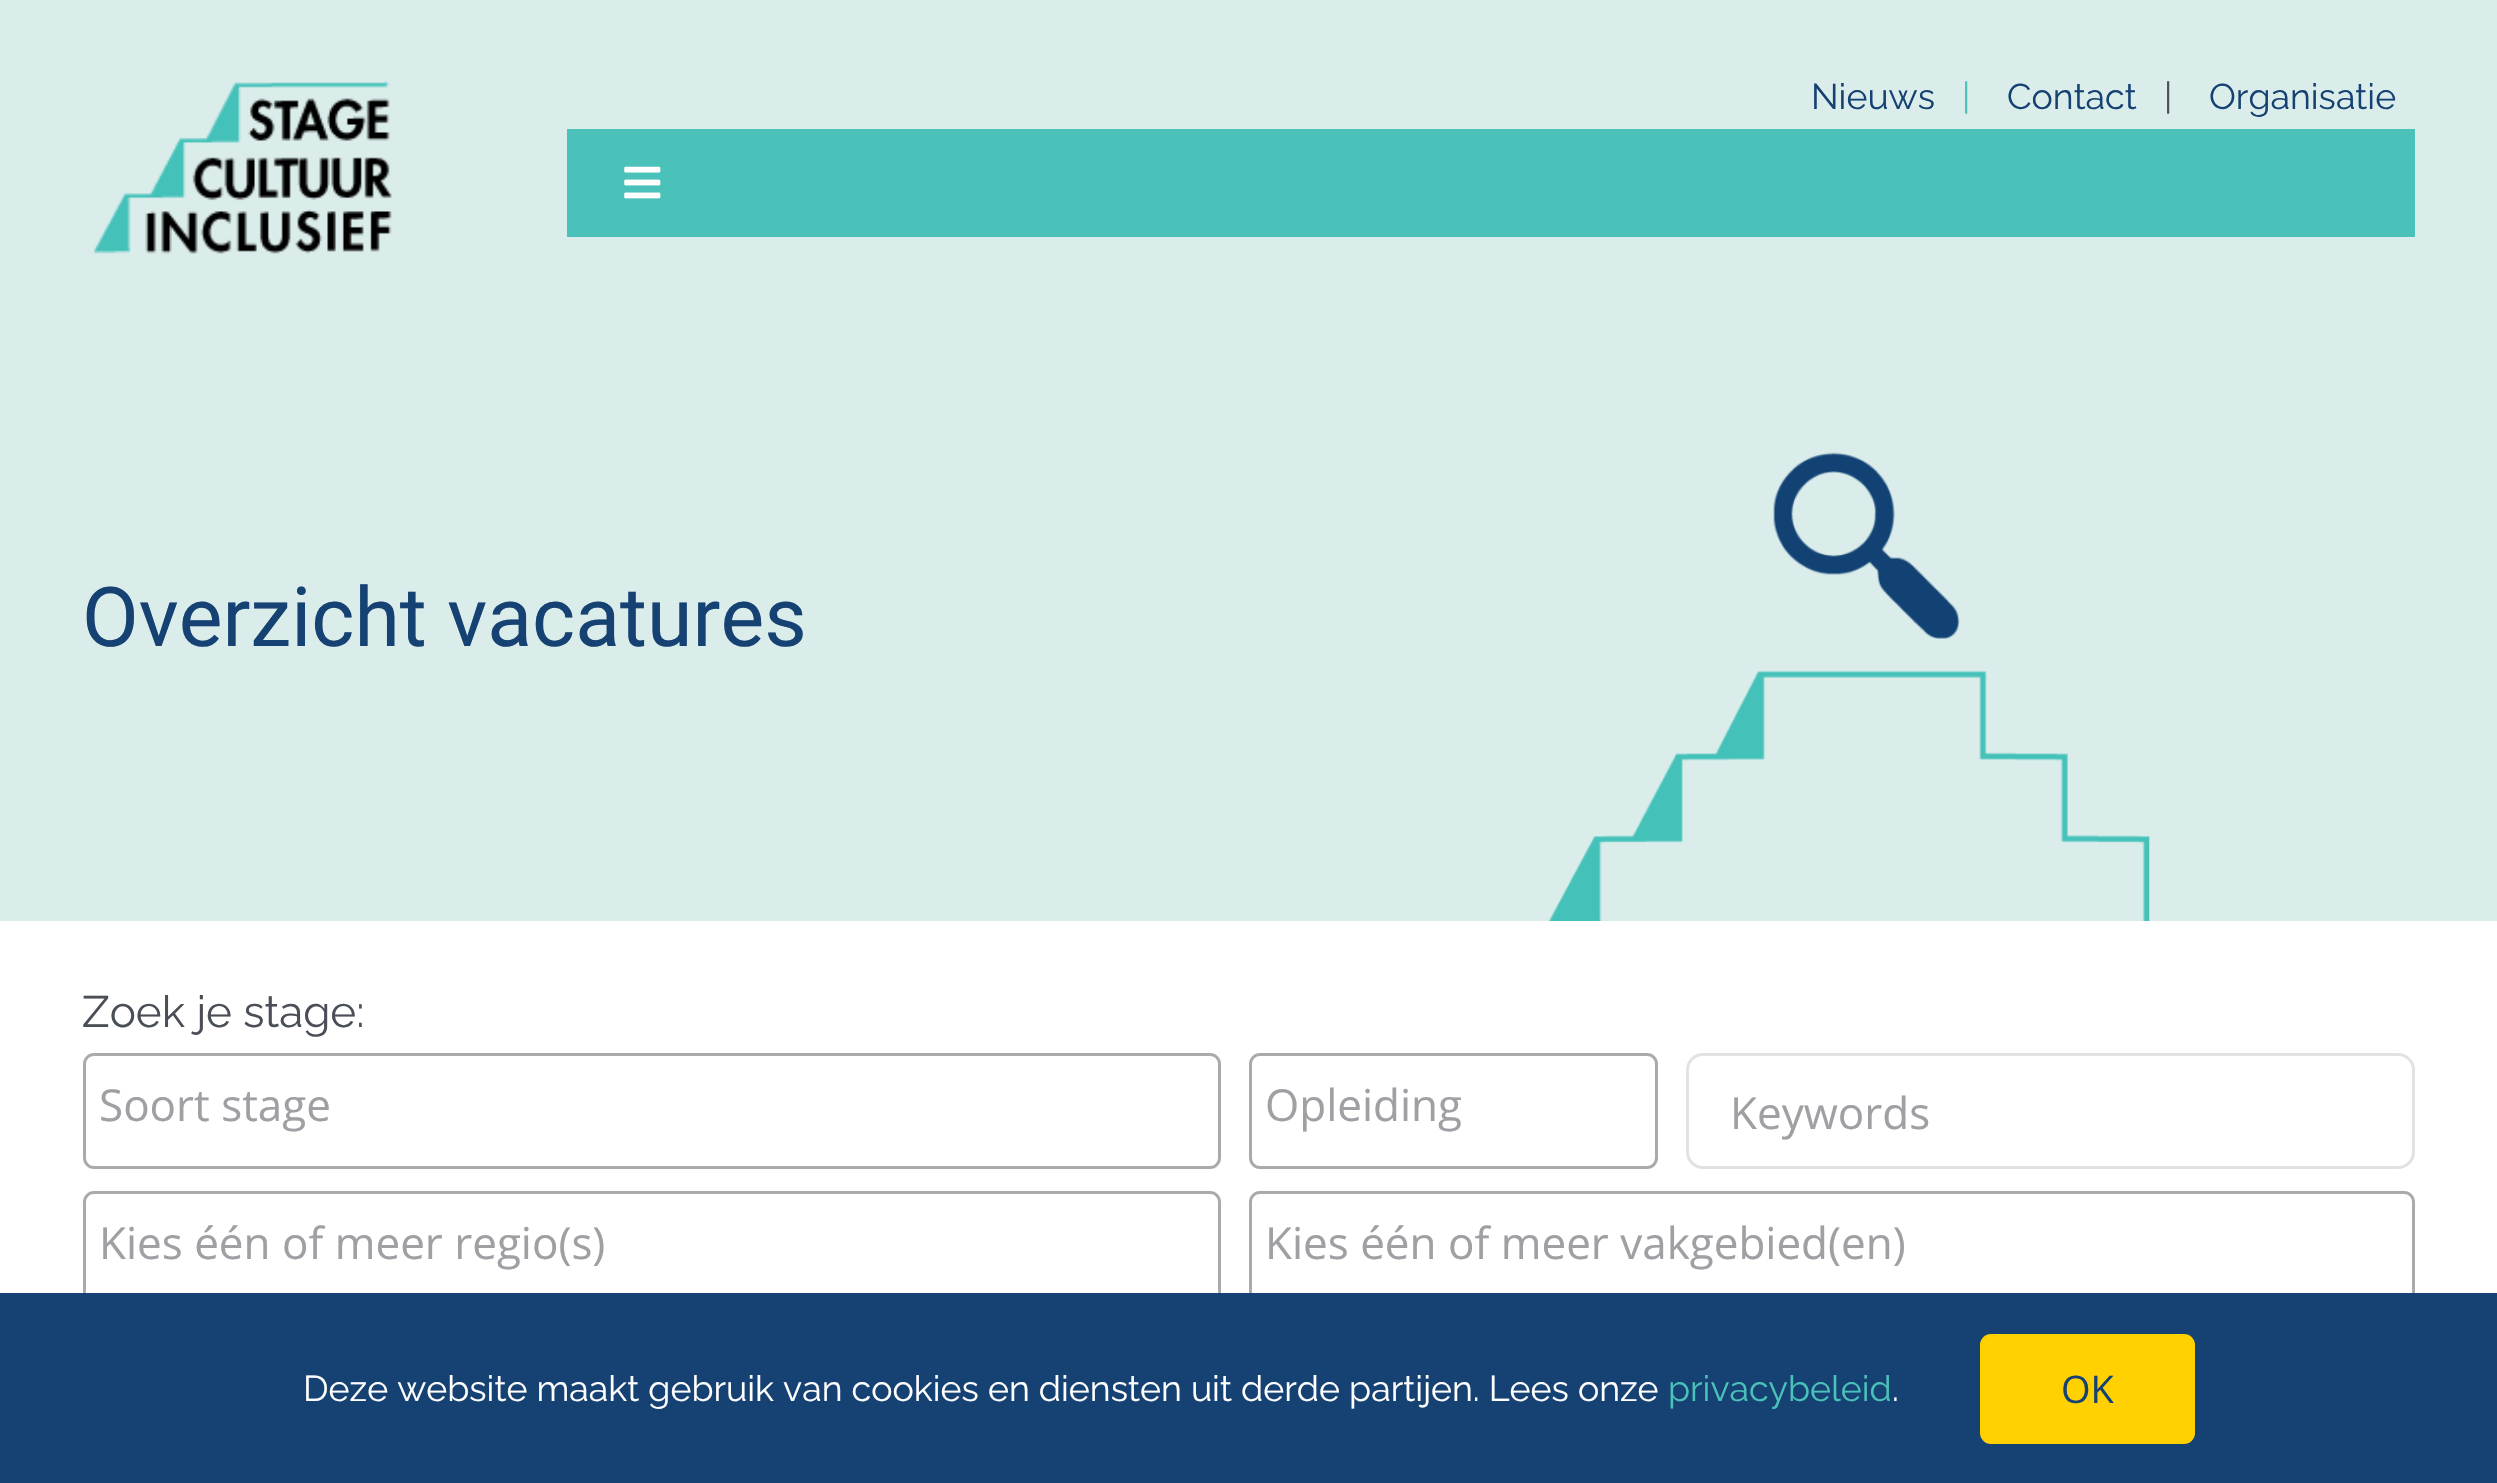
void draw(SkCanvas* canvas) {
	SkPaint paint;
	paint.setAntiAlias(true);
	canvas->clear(0xffffffff);
	paint.setColor(0xffdbedeb);
	canvas->drawRect(SkRect::MakeXYWH(0, 0, 2497, 921), paint);
	canvas->drawImageRect(SkImages::DeferredFromEncodedData(SkData::MakeFromFileName("img1.png")), SkRect::MakeXYWH(93, 80, 300, 174), SkSamplingOptions());
	SkFont f1(fontMgr->matchFamilyStyle("Raleway", SkFontStyle::Normal()), 35.75);
	f1.setSubpixel(true);
	paint.setColor(0xff164273);
	canvas->drawString("Nieuws", 1811, 109, f1, paint);
	paint.setColor(0xff4ac1b9);
	canvas->drawString("|", 1962, 109, f1, paint);
	paint.setColor(0xff164273);
	canvas->drawString("Contact", 2007, 109, f1, paint);
	paint.setColor(0xff4a4e57);
	canvas->drawString("|", 2164, 109, f1, paint);
	paint.setColor(0xff164273);
	canvas->drawString("Organisatie", 2209, 109, f1, paint);
	paint.setColor(0xff4ac1b9);
	canvas->drawRect(SkRect::MakeXYWH(567, 129, 1848, 108), paint);
	canvas->drawImageRect(SkImages::DeferredFromEncodedData(SkData::MakeFromFileName("img2.png")), SkRect::MakeXYWH(624, 166, 37, 33), SkSamplingOptions());
	SkFont f2(fontMgr->matchFamilyStyle("Roboto", SkFontStyle::Normal()), 82.5);
	f2.setSubpixel(true);
	paint.setColor(0xff164273);
	canvas->drawString("Overzicht vacatures", 82, 646, f2, paint);
	canvas->drawImageRect(SkImages::DeferredFromEncodedData(SkData::MakeFromFileName("img3.png")), SkRect::MakeXYWH(1548, 452, 603, 469), SkSamplingOptions());
	SkFont f3(fontMgr->matchFamilyStyle("Raleway", SkFontStyle::Normal()), 44);
	f3.setSubpixel(true);
	paint.setColor(0xff4a4e57);
	canvas->drawString("Zoek je stage:", 82, 1027, f3, paint);
	paint.setStroke(true);
	paint.setStrokeWidth(3);
	paint.setColor(0xffaaaaaa);
	canvas->drawRoundRect(SkRect::MakeXYWH(84.5, 1054.5, 1135, 113), 9.5, 9.5, paint);
	SkFont f4(fontMgr->matchFamilyStyle("Open Sans", SkFontStyle::Normal()), 44);
	f4.setSubpixel(true);
	paint.setStroke(false);
	paint.setColor(0xff9ea0a4);
	canvas->drawString("Soort stage", 99, 1121, f4, paint);
	paint.setStroke(true);
	paint.setColor(0xffaaaaaa);
	canvas->drawRoundRect(SkRect::MakeXYWH(1250.5, 1054.5, 406, 113), 9.5, 9.5, paint);
	paint.setStroke(false);
	paint.setColor(0xff9ea0a4);
	canvas->drawString("Opleiding", 1265, 1121, f4, paint);
	paint.setStroke(true);
	paint.setColor(0xffe2e2e2);
	canvas->drawRoundRect(SkRect::MakeXYWH(1687.5, 1054.5, 726, 113), 15.5, 15.5, paint);
	paint.setStroke(false);
	paint.setColor(0xff9ea0a4);
	canvas->drawString("Keywords", 1730, 1129, f4, paint);
	paint.setStroke(true);
	paint.setColor(0xffaaaaaa);
	canvas->drawRoundRect(SkRect::MakeXYWH(84.5, 1192.5, 1135, 112), 9.5, 9.5, paint);
	paint.setStroke(false);
	paint.setColor(0xff9ea0a4);
	canvas->drawString("Kies één of meer regio(s)", 99, 1259, f4, paint);
	paint.setStroke(true);
	paint.setColor(0xffaaaaaa);
	canvas->drawRoundRect(SkRect::MakeXYWH(1250.5, 1192.5, 1163, 112), 9.5, 9.5, paint);
	paint.setStroke(false);
	paint.setColor(0xff9ea0a4);
	canvas->drawString("Kies één of meer vakgebied(en)", 1265, 1259, f4, paint);
	paint.setColor(0xff164273);
	canvas->drawRect(SkRect::MakeXYWH(0, 1293, 2497, 190), paint);
	paint.setColor(0xffffffff);
	canvas->drawString("Deze website maakt gebruik van cookies en diensten uit derde partijen. Lees onze", 303, 1401, f1, paint);
	paint.setColor(0xff4ac1b9);
	canvas->drawString("privacybeleid", 1668, 1401, f1, paint);
	paint.setColor(0xffffffff);
	canvas->drawString(".", 1892, 1401, f1, paint);
	paint.setColor(0xffffd100);
	canvas->drawRoundRect(SkRect::MakeXYWH(1980, 1334, 215, 110), 11, 11, paint);
	SkFont f5(fontMgr->matchFamilyStyle("Open Sans", SkFontStyle::Normal()), 38);
	f5.setSubpixel(true);
	paint.setColor(0xff164273);
	canvas->drawString("OK", 2061, 1403, f5, paint);
}
